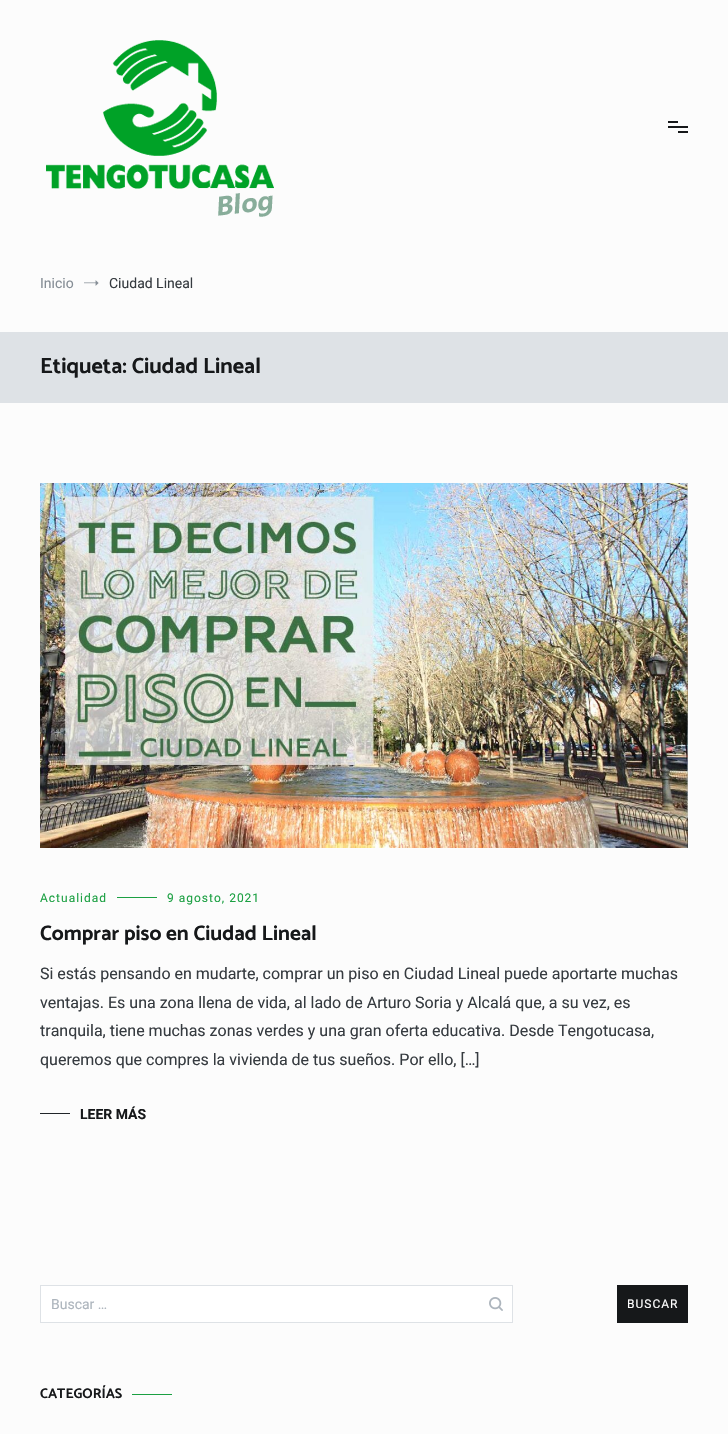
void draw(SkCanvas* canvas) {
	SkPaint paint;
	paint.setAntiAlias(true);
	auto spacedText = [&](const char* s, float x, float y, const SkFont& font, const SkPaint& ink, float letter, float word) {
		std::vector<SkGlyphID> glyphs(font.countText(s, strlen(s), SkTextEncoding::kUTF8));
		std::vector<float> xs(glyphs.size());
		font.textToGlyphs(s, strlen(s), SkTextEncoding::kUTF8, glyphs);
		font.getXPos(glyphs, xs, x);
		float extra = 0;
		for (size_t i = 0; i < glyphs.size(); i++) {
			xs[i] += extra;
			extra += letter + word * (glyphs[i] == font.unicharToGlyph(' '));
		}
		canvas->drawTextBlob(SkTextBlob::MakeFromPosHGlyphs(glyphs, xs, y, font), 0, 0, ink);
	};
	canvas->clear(0xfffcfcfc);
	canvas->drawImageRect(SkImages::DeferredFromEncodedData(SkData::MakeFromFileName("img1.png")), SkRect::MakeXYWH(46, 40, 228, 177), SkSamplingOptions());
	paint.setColor(0xff16181a);
	canvas->drawRect(SkRect::MakeXYWH(668, 121, 10, 2), paint);
	canvas->drawRect(SkRect::MakeXYWH(668, 126, 20, 2), paint);
	canvas->drawRect(SkRect::MakeXYWH(678, 131, 10, 2), paint);
	SkFont f1(fontMgr->matchFamilyStyle("Roboto", SkFontStyle::Normal()), 14);
	f1.setSubpixel(true);
	paint.setColor(0xff868e96);
	canvas->drawString("Inicio", 40, 288, f1, paint);
	canvas->drawImageRect(SkImages::DeferredFromEncodedData(SkData::MakeFromFileName("img2.png")), SkRect::MakeXYWH(84, 280, 15, 6), SkSamplingOptions());
	paint.setColor(0xff363b40);
	canvas->drawString("Ciudad Lineal", 109, 288, f1, paint);
	paint.setColor(0xffdee2e6);
	canvas->drawRect(SkRect::MakeXYWH(0, 332, 728, 71), paint);
	SkFont f2(fontMgr->matchFamilyStyle("Catamaran", SkFontStyle::Bold()), 22);
	f2.setSubpixel(true);
	paint.setColor(0xff16181a);
	canvas->drawString("Etiqueta: Ciudad Lineal", 40, 373, f2, paint);
	canvas->drawImageRect(SkImages::DeferredFromEncodedData(SkData::MakeFromFileName("img3.png")), SkRect::MakeXYWH(40, 483, 648, 365), SkSamplingOptions());
	SkFont f3(fontMgr->matchFamilyStyle("Roboto", SkFontStyle::Normal()), 12);
	f3.setSubpixel(true);
	paint.setColor(0xff1ba042);
	spacedText("Actualidad", 40, 902, f3, paint, 1, 0);
	canvas->drawRect(SkRect::MakeXYWH(117, 897, 40, 1), paint);
	spacedText("9 agosto, 2021", 167, 902, f3, paint, 1, 0);
	SkFont f4(fontMgr->matchFamilyStyle("Catamaran", SkFontStyle::Bold()), 21);
	f4.setSubpixel(true);
	paint.setColor(0xff16181a);
	canvas->drawString("Comprar piso en Ciudad Lineal", 40, 940, f4, paint);
	SkFont f5(fontMgr->matchFamilyStyle("Roboto", SkFontStyle::Normal()), 16);
	f5.setSubpixel(true);
	paint.setColor(0xff363b40);
	canvas->drawString("Si estás pensando en mudarte, comprar un piso en Ciudad Lineal puede aportarte muchas", 40, 979, f5, paint);
	canvas->drawString("ventajas. Es una zona llena de vida, al lado de Arturo Soria y Alcalá que, a su vez, es", 40, 1008, f5, paint);
	canvas->drawString("tranquila, tiene muchas zonas verdes y una gran oferta educativa. Desde Tengotucasa,", 40, 1036, f5, paint);
	canvas->drawString("queremos que compres la vivienda de tus sueños. Por ello, […]", 40, 1065, f5, paint);
	paint.setColor(0xff212529);
	canvas->drawRect(SkRect::MakeXYWH(40, 1113, 30, 1), paint);
	SkFont f6(fontMgr->matchFamilyStyle("Roboto", SkFontStyle::Bold()), 14);
	f6.setSubpixel(true);
	paint.setColor(0xff16181a);
	canvas->drawString("LEER MÁS", 80, 1119, f6, paint);
	paint.setColor(0xffffffff);
	canvas->drawRect(SkRect::MakeXYWH(40.5, 1285.5, 472, 37), paint);
	paint.setStroke(true);
	paint.setStrokeWidth(1);
	paint.setColor(0xffdee2e6);
	canvas->drawRect(SkRect::MakeXYWH(40.5, 1285.5, 472, 37), paint);
	paint.setStroke(false);
	paint.setColor(0xffadb5bd);
	canvas->drawString("Buscar …", 51, 1309, f1, paint);
	canvas->drawImageRect(SkImages::DeferredFromEncodedData(SkData::MakeFromFileName("img4.png")), SkRect::MakeXYWH(489, 1297, 14, 14), SkSamplingOptions());
	paint.setColor(0xff16181a);
	canvas->drawRect(SkRect::MakeXYWH(617, 1285, 71, 38), paint);
	paint.setColor(0xffffffff);
	spacedText("BUSCAR", 627, 1308, f3, paint, 1, 0);
	SkFont f7(fontMgr->matchFamilyStyle("Catamaran", SkFontStyle::Bold()), 14);
	f7.setSubpixel(true);
	paint.setColor(0xff16181a);
	canvas->drawString("CATEGORÍAS", 40, 1398, f7, paint);
	paint.setColor(0xff1ba042);
	canvas->drawRect(SkRect::MakeXYWH(132, 1394, 40, 1), paint);
}
